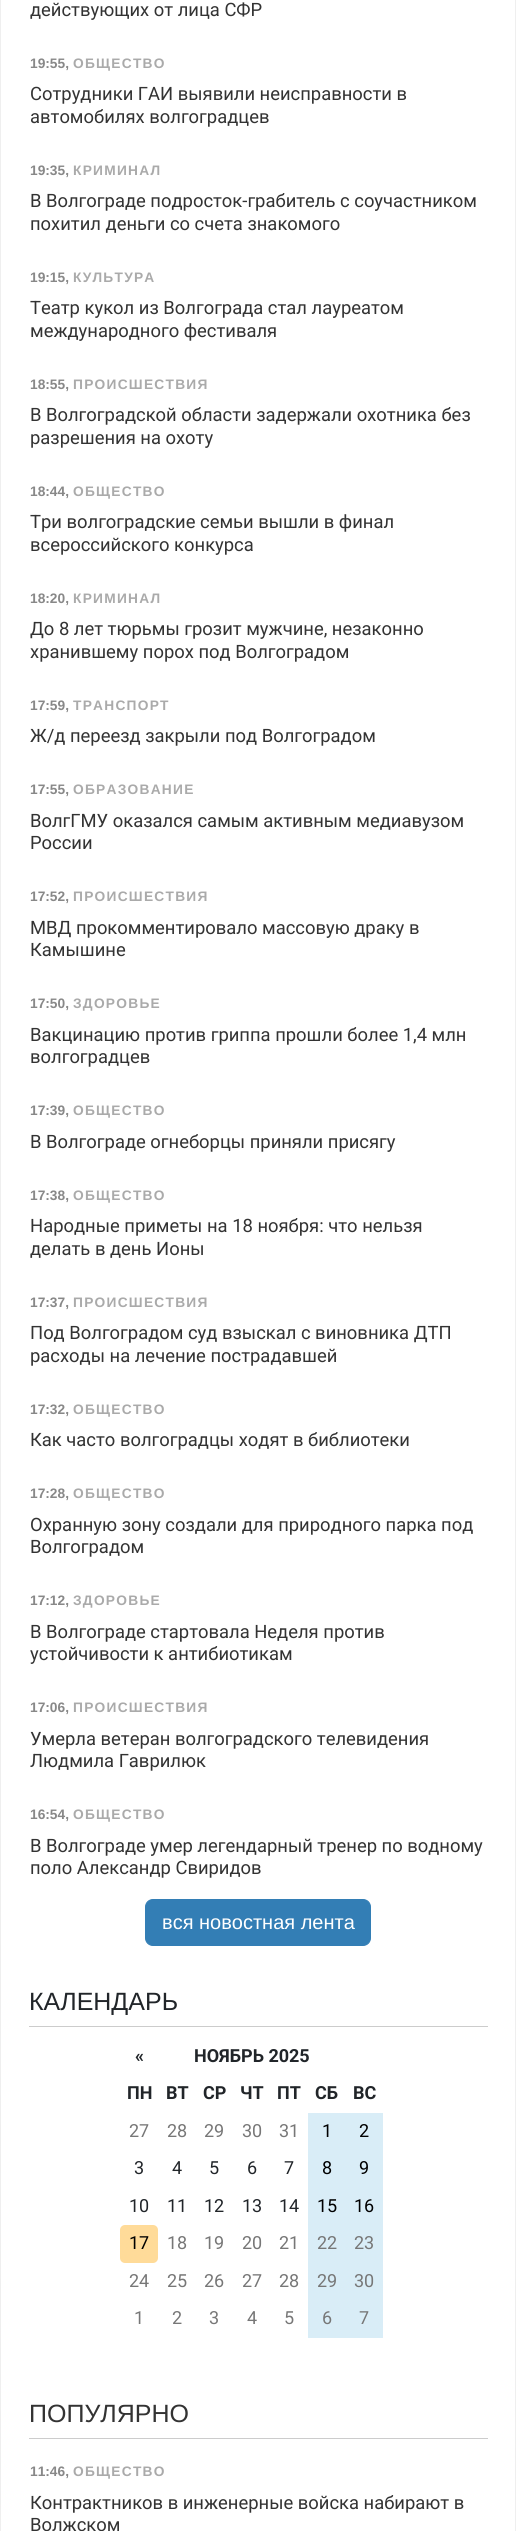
#include <cairo.h>
#include <math.h>
#include <stddef.h>

typedef struct { double x, y; const char *s; } line_t;

static void ink(cairo_t *ctx, unsigned color) {
    cairo_set_source_rgb(ctx, (color >> 16) / 255.0, (color >> 8 & 255) / 255.0, (color & 255) / 255.0);
}

static void write_spaced(cairo_t *ctx, double x, double y, const char *s, double letter, double word) {
    cairo_move_to(ctx, x, y);
    while (*s) {
        char ch[5] = {0};
        int n = 0;
        do ch[n++] = *s++; while ((*s & 0xC0) == 0x80);
        cairo_show_text(ctx, ch);
        cairo_rel_move_to(ctx, letter + word * (*ch == ' '), 0);
    }
}

static void round_path(cairo_t *ctx, double x, double y, double w, double h, double r) {
    cairo_new_sub_path(ctx);
    cairo_arc(ctx, x + w - r, y + h - r, r, 0, M_PI / 2);
    cairo_arc(ctx, x + r, y + h - r, r, M_PI / 2, M_PI);
    cairo_arc(ctx, x + r, y + r, r, M_PI, 1.5 * M_PI);
    cairo_arc(ctx, x + w - r, y + r, r, 1.5 * M_PI, 2 * M_PI);
    cairo_close_path(ctx);
}

int main(void) {
    cairo_surface_t *surface = cairo_image_surface_create(CAIRO_FORMAT_RGB24, 516, 2531);
    cairo_t *ctx = cairo_create(surface);
    cairo_font_options_t *options = cairo_font_options_create();
    cairo_font_options_set_hint_metrics(options, CAIRO_HINT_METRICS_OFF);
    cairo_font_options_set_hint_style(options, CAIRO_HINT_STYLE_NONE);
    cairo_set_font_options(ctx, options);
    cairo_set_miter_limit(ctx, 4);
    ink(ctx, 0xFFFFFF);
    cairo_paint(ctx);
    ink(ctx, 0xEFEFEF);
    cairo_rectangle(ctx, 515, 0, 1, 2531);
    cairo_fill(ctx);
    cairo_rectangle(ctx, 0, 0, 1, 2531);
    cairo_fill(ctx);
    cairo_select_font_face(ctx, "Roboto", CAIRO_FONT_SLANT_NORMAL, CAIRO_FONT_WEIGHT_NORMAL);
    cairo_set_font_size(ctx, 18.4);
    ink(ctx, 0x333333);
    cairo_move_to(ctx, 30, 16);
    cairo_show_text(ctx, "действующих от лица СФР");
    cairo_select_font_face(ctx, "Liberation Sans", CAIRO_FONT_SLANT_NORMAL, CAIRO_FONT_WEIGHT_BOLD);
    cairo_set_font_size(ctx, 13.75);
    ink(ctx, 0x888888);
    cairo_move_to(ctx, 30, 68);
    cairo_show_text(ctx, "19:55,");
    ink(ctx, 0xAAAAAA);
    write_spaced(ctx, 73, 68, "ОБЩЕСТВО", 1.25, 0);
    cairo_select_font_face(ctx, "Roboto", CAIRO_FONT_SLANT_NORMAL, CAIRO_FONT_WEIGHT_NORMAL);
    cairo_set_font_size(ctx, 18.4);
    ink(ctx, 0x333333);
    cairo_move_to(ctx, 30, 100);
    cairo_show_text(ctx, "Сотрудники ГАИ выявили неисправности в");
    cairo_move_to(ctx, 30, 123);
    cairo_show_text(ctx, "автомобилях волгоградцев");
    cairo_select_font_face(ctx, "Liberation Sans", CAIRO_FONT_SLANT_NORMAL, CAIRO_FONT_WEIGHT_BOLD);
    cairo_set_font_size(ctx, 13.75);
    ink(ctx, 0x888888);
    cairo_move_to(ctx, 30, 175);
    cairo_show_text(ctx, "19:35,");
    ink(ctx, 0xAAAAAA);
    write_spaced(ctx, 73, 175, "КРИМИНАЛ", 1.25, 0);
    cairo_select_font_face(ctx, "Roboto", CAIRO_FONT_SLANT_NORMAL, CAIRO_FONT_WEIGHT_NORMAL);
    cairo_set_font_size(ctx, 18.4);
    ink(ctx, 0x333333);
    cairo_move_to(ctx, 30, 207);
    cairo_show_text(ctx, "В Волгограде подросток-грабитель с соучастником");
    cairo_move_to(ctx, 30, 230);
    cairo_show_text(ctx, "похитил деньги со счета знакомого");
    cairo_select_font_face(ctx, "Liberation Sans", CAIRO_FONT_SLANT_NORMAL, CAIRO_FONT_WEIGHT_BOLD);
    cairo_set_font_size(ctx, 13.75);
    ink(ctx, 0x888888);
    cairo_move_to(ctx, 30, 282);
    cairo_show_text(ctx, "19:15,");
    ink(ctx, 0xAAAAAA);
    write_spaced(ctx, 73, 282, "КУЛЬТУРА", 1.25, 0);
    cairo_select_font_face(ctx, "Roboto", CAIRO_FONT_SLANT_NORMAL, CAIRO_FONT_WEIGHT_NORMAL);
    cairo_set_font_size(ctx, 18.4);
    ink(ctx, 0x333333);
    cairo_move_to(ctx, 30, 314);
    cairo_show_text(ctx, "Театр кукол из Волгограда стал лауреатом");
    cairo_move_to(ctx, 30, 337);
    cairo_show_text(ctx, "международного фестиваля");
    cairo_select_font_face(ctx, "Liberation Sans", CAIRO_FONT_SLANT_NORMAL, CAIRO_FONT_WEIGHT_BOLD);
    cairo_set_font_size(ctx, 13.75);
    ink(ctx, 0x888888);
    cairo_move_to(ctx, 30, 389);
    cairo_show_text(ctx, "18:55,");
    ink(ctx, 0xAAAAAA);
    write_spaced(ctx, 73, 389, "ПРОИСШЕСТВИЯ", 1.25, 0);
    cairo_select_font_face(ctx, "Roboto", CAIRO_FONT_SLANT_NORMAL, CAIRO_FONT_WEIGHT_NORMAL);
    cairo_set_font_size(ctx, 18.4);
    ink(ctx, 0x333333);
    cairo_move_to(ctx, 30, 421);
    cairo_show_text(ctx, "В Волгоградской области задержали охотника без");
    cairo_move_to(ctx, 30, 444);
    cairo_show_text(ctx, "разрешения на охоту");
    cairo_select_font_face(ctx, "Liberation Sans", CAIRO_FONT_SLANT_NORMAL, CAIRO_FONT_WEIGHT_BOLD);
    cairo_set_font_size(ctx, 13.75);
    ink(ctx, 0x888888);
    cairo_move_to(ctx, 30, 496);
    cairo_show_text(ctx, "18:44,");
    ink(ctx, 0xAAAAAA);
    write_spaced(ctx, 73, 496, "ОБЩЕСТВО", 1.25, 0);
    cairo_select_font_face(ctx, "Roboto", CAIRO_FONT_SLANT_NORMAL, CAIRO_FONT_WEIGHT_NORMAL);
    cairo_set_font_size(ctx, 18.4);
    ink(ctx, 0x333333);
    cairo_move_to(ctx, 30, 528);
    cairo_show_text(ctx, "Три волгоградские семьи вышли в финал");
    cairo_move_to(ctx, 30, 551);
    cairo_show_text(ctx, "всероссийского конкурса");
    cairo_select_font_face(ctx, "Liberation Sans", CAIRO_FONT_SLANT_NORMAL, CAIRO_FONT_WEIGHT_BOLD);
    cairo_set_font_size(ctx, 13.75);
    ink(ctx, 0x888888);
    cairo_move_to(ctx, 30, 603);
    cairo_show_text(ctx, "18:20,");
    ink(ctx, 0xAAAAAA);
    write_spaced(ctx, 73, 603, "КРИМИНАЛ", 1.25, 0);
    cairo_select_font_face(ctx, "Roboto", CAIRO_FONT_SLANT_NORMAL, CAIRO_FONT_WEIGHT_NORMAL);
    cairo_set_font_size(ctx, 18.4);
    ink(ctx, 0x333333);
    cairo_move_to(ctx, 30, 635);
    cairo_show_text(ctx, "До 8 лет тюрьмы грозит мужчине, незаконно");
    cairo_move_to(ctx, 30, 658);
    cairo_show_text(ctx, "хранившему порох под Волгоградом");
    cairo_select_font_face(ctx, "Liberation Sans", CAIRO_FONT_SLANT_NORMAL, CAIRO_FONT_WEIGHT_BOLD);
    cairo_set_font_size(ctx, 13.75);
    ink(ctx, 0x888888);
    cairo_move_to(ctx, 30, 710);
    cairo_show_text(ctx, "17:59,");
    ink(ctx, 0xAAAAAA);
    write_spaced(ctx, 73, 710, "ТРАНСПОРТ", 1.25, 0);
    cairo_select_font_face(ctx, "Roboto", CAIRO_FONT_SLANT_NORMAL, CAIRO_FONT_WEIGHT_NORMAL);
    cairo_set_font_size(ctx, 18.4);
    ink(ctx, 0x333333);
    cairo_move_to(ctx, 30, 742);
    cairo_show_text(ctx, "Ж/д переезд закрыли под Волгоградом");
    cairo_select_font_face(ctx, "Liberation Sans", CAIRO_FONT_SLANT_NORMAL, CAIRO_FONT_WEIGHT_BOLD);
    cairo_set_font_size(ctx, 13.75);
    ink(ctx, 0x888888);
    cairo_move_to(ctx, 30, 794);
    cairo_show_text(ctx, "17:55,");
    ink(ctx, 0xAAAAAA);
    write_spaced(ctx, 73, 794, "ОБРАЗОВАНИЕ", 1.25, 0);
    cairo_select_font_face(ctx, "Roboto", CAIRO_FONT_SLANT_NORMAL, CAIRO_FONT_WEIGHT_NORMAL);
    cairo_set_font_size(ctx, 18.4);
    ink(ctx, 0x333333);
    cairo_move_to(ctx, 30, 827);
    cairo_show_text(ctx, "ВолгГМУ оказался самым активным медиавузом");
    cairo_move_to(ctx, 30, 849);
    cairo_show_text(ctx, "России");
    cairo_select_font_face(ctx, "Liberation Sans", CAIRO_FONT_SLANT_NORMAL, CAIRO_FONT_WEIGHT_BOLD);
    cairo_set_font_size(ctx, 13.75);
    ink(ctx, 0x888888);
    cairo_move_to(ctx, 30, 901);
    cairo_show_text(ctx, "17:52,");
    ink(ctx, 0xAAAAAA);
    write_spaced(ctx, 73, 901, "ПРОИСШЕСТВИЯ", 1.25, 0);
    cairo_select_font_face(ctx, "Roboto", CAIRO_FONT_SLANT_NORMAL, CAIRO_FONT_WEIGHT_NORMAL);
    cairo_set_font_size(ctx, 18.4);
    ink(ctx, 0x333333);
    cairo_move_to(ctx, 30, 934);
    cairo_show_text(ctx, "МВД прокомментировало массовую драку в");
    cairo_move_to(ctx, 30, 956);
    cairo_show_text(ctx, "Камышине");
    cairo_select_font_face(ctx, "Liberation Sans", CAIRO_FONT_SLANT_NORMAL, CAIRO_FONT_WEIGHT_BOLD);
    cairo_set_font_size(ctx, 13.75);
    ink(ctx, 0x888888);
    cairo_move_to(ctx, 30, 1008);
    cairo_show_text(ctx, "17:50,");
    ink(ctx, 0xAAAAAA);
    write_spaced(ctx, 73, 1008, "ЗДОРОВЬЕ", 1.25, 0);
    cairo_select_font_face(ctx, "Roboto", CAIRO_FONT_SLANT_NORMAL, CAIRO_FONT_WEIGHT_NORMAL);
    cairo_set_font_size(ctx, 18.4);
    ink(ctx, 0x333333);
    cairo_move_to(ctx, 30, 1041);
    cairo_show_text(ctx, "Вакцинацию против гриппа прошли более 1,4 млн");
    cairo_move_to(ctx, 30, 1063);
    cairo_show_text(ctx, "волгоградцев");
    cairo_select_font_face(ctx, "Liberation Sans", CAIRO_FONT_SLANT_NORMAL, CAIRO_FONT_WEIGHT_BOLD);
    cairo_set_font_size(ctx, 13.75);
    ink(ctx, 0x888888);
    cairo_move_to(ctx, 30, 1115);
    cairo_show_text(ctx, "17:39,");
    ink(ctx, 0xAAAAAA);
    write_spaced(ctx, 73, 1115, "ОБЩЕСТВО", 1.25, 0);
    cairo_select_font_face(ctx, "Roboto", CAIRO_FONT_SLANT_NORMAL, CAIRO_FONT_WEIGHT_NORMAL);
    cairo_set_font_size(ctx, 18.4);
    ink(ctx, 0x333333);
    cairo_move_to(ctx, 30, 1148);
    cairo_show_text(ctx, "В Волгограде огнеборцы приняли присягу");
    cairo_select_font_face(ctx, "Liberation Sans", CAIRO_FONT_SLANT_NORMAL, CAIRO_FONT_WEIGHT_BOLD);
    cairo_set_font_size(ctx, 13.75);
    ink(ctx, 0x888888);
    cairo_move_to(ctx, 30, 1200);
    cairo_show_text(ctx, "17:38,");
    ink(ctx, 0xAAAAAA);
    write_spaced(ctx, 73, 1200, "ОБЩЕСТВО", 1.25, 0);
    cairo_select_font_face(ctx, "Roboto", CAIRO_FONT_SLANT_NORMAL, CAIRO_FONT_WEIGHT_NORMAL);
    cairo_set_font_size(ctx, 18.4);
    ink(ctx, 0x333333);
    cairo_move_to(ctx, 30, 1232);
    cairo_show_text(ctx, "Народные приметы на 18 ноября: что нельзя");
    cairo_move_to(ctx, 30, 1255);
    cairo_show_text(ctx, "делать в день Ионы");
    cairo_select_font_face(ctx, "Liberation Sans", CAIRO_FONT_SLANT_NORMAL, CAIRO_FONT_WEIGHT_BOLD);
    cairo_set_font_size(ctx, 13.75);
    ink(ctx, 0x888888);
    cairo_move_to(ctx, 30, 1307);
    cairo_show_text(ctx, "17:37,");
    ink(ctx, 0xAAAAAA);
    write_spaced(ctx, 73, 1307, "ПРОИСШЕСТВИЯ", 1.25, 0);
    cairo_select_font_face(ctx, "Roboto", CAIRO_FONT_SLANT_NORMAL, CAIRO_FONT_WEIGHT_NORMAL);
    cairo_set_font_size(ctx, 18.4);
    ink(ctx, 0x333333);
    cairo_move_to(ctx, 30, 1339);
    cairo_show_text(ctx, "Под Волгоградом суд взыскал с виновника ДТП");
    cairo_move_to(ctx, 30, 1362);
    cairo_show_text(ctx, "расходы на лечение пострадавшей");
    cairo_select_font_face(ctx, "Liberation Sans", CAIRO_FONT_SLANT_NORMAL, CAIRO_FONT_WEIGHT_BOLD);
    cairo_set_font_size(ctx, 13.75);
    ink(ctx, 0x888888);
    cairo_move_to(ctx, 30, 1414);
    cairo_show_text(ctx, "17:32,");
    ink(ctx, 0xAAAAAA);
    write_spaced(ctx, 73, 1414, "ОБЩЕСТВО", 1.25, 0);
    cairo_select_font_face(ctx, "Roboto", CAIRO_FONT_SLANT_NORMAL, CAIRO_FONT_WEIGHT_NORMAL);
    cairo_set_font_size(ctx, 18.4);
    ink(ctx, 0x333333);
    cairo_move_to(ctx, 30, 1446);
    cairo_show_text(ctx, "Как часто волгоградцы ходят в библиотеки");
    cairo_select_font_face(ctx, "Liberation Sans", CAIRO_FONT_SLANT_NORMAL, CAIRO_FONT_WEIGHT_BOLD);
    cairo_set_font_size(ctx, 13.75);
    ink(ctx, 0x888888);
    cairo_move_to(ctx, 30, 1498);
    cairo_show_text(ctx, "17:28,");
    ink(ctx, 0xAAAAAA);
    write_spaced(ctx, 73, 1498, "ОБЩЕСТВО", 1.25, 0);
    cairo_select_font_face(ctx, "Roboto", CAIRO_FONT_SLANT_NORMAL, CAIRO_FONT_WEIGHT_NORMAL);
    cairo_set_font_size(ctx, 18.4);
    ink(ctx, 0x333333);
    cairo_move_to(ctx, 30, 1531);
    cairo_show_text(ctx, "Охранную зону создали для природного парка под");
    cairo_move_to(ctx, 30, 1553);
    cairo_show_text(ctx, "Волгоградом");
    cairo_select_font_face(ctx, "Liberation Sans", CAIRO_FONT_SLANT_NORMAL, CAIRO_FONT_WEIGHT_BOLD);
    cairo_set_font_size(ctx, 13.75);
    ink(ctx, 0x888888);
    cairo_move_to(ctx, 30, 1605);
    cairo_show_text(ctx, "17:12,");
    ink(ctx, 0xAAAAAA);
    write_spaced(ctx, 73, 1605, "ЗДОРОВЬЕ", 1.25, 0);
    cairo_select_font_face(ctx, "Roboto", CAIRO_FONT_SLANT_NORMAL, CAIRO_FONT_WEIGHT_NORMAL);
    cairo_set_font_size(ctx, 18.4);
    ink(ctx, 0x333333);
    cairo_move_to(ctx, 30, 1638);
    cairo_show_text(ctx, "В Волгограде стартовала Неделя против");
    cairo_move_to(ctx, 30, 1660);
    cairo_show_text(ctx, "устойчивости к антибиотикам");
    cairo_select_font_face(ctx, "Liberation Sans", CAIRO_FONT_SLANT_NORMAL, CAIRO_FONT_WEIGHT_BOLD);
    cairo_set_font_size(ctx, 13.75);
    ink(ctx, 0x888888);
    cairo_move_to(ctx, 30, 1712);
    cairo_show_text(ctx, "17:06,");
    ink(ctx, 0xAAAAAA);
    write_spaced(ctx, 73, 1712, "ПРОИСШЕСТВИЯ", 1.25, 0);
    cairo_select_font_face(ctx, "Roboto", CAIRO_FONT_SLANT_NORMAL, CAIRO_FONT_WEIGHT_NORMAL);
    cairo_set_font_size(ctx, 18.4);
    ink(ctx, 0x333333);
    cairo_move_to(ctx, 30, 1745);
    cairo_show_text(ctx, "Умерла ветеран волгоградского телевидения");
    cairo_move_to(ctx, 30, 1767);
    cairo_show_text(ctx, "Людмила Гаврилюк");
    cairo_select_font_face(ctx, "Liberation Sans", CAIRO_FONT_SLANT_NORMAL, CAIRO_FONT_WEIGHT_BOLD);
    cairo_set_font_size(ctx, 13.75);
    ink(ctx, 0x888888);
    cairo_move_to(ctx, 30, 1819);
    cairo_show_text(ctx, "16:54,");
    ink(ctx, 0xAAAAAA);
    write_spaced(ctx, 73, 1819, "ОБЩЕСТВО", 1.25, 0);
    cairo_select_font_face(ctx, "Roboto", CAIRO_FONT_SLANT_NORMAL, CAIRO_FONT_WEIGHT_NORMAL);
    cairo_set_font_size(ctx, 18.4);
    ink(ctx, 0x333333);
    cairo_move_to(ctx, 30, 1852);
    cairo_show_text(ctx, "В Волгограде умер легендарный тренер по водному");
    cairo_move_to(ctx, 30, 1874);
    cairo_show_text(ctx, "поло Александр Свиридов");
    ink(ctx, 0x337EB5);
    round_path(ctx, 145.5, 1899.5, 225, 46, 7.5);
    cairo_fill_preserve(ctx);
    cairo_set_line_width(ctx, 1);
    cairo_stroke(ctx);
    cairo_select_font_face(ctx, "Liberation Sans", CAIRO_FONT_SLANT_NORMAL, CAIRO_FONT_WEIGHT_NORMAL);
    cairo_set_font_size(ctx, 20);
    ink(ctx, 0xFFFFFF);
    cairo_move_to(ctx, 162, 1929);
    cairo_show_text(ctx, "вся новостная лента");
    ink(ctx, 0xCCCCCC);
    cairo_rectangle(ctx, 29, 2026, 459, 1);
    cairo_fill(ctx);
    cairo_set_font_size(ctx, 25);
    ink(ctx, 0x212529);
    cairo_move_to(ctx, 29, 2010);
    cairo_show_text(ctx, "КАЛЕНДАРЬ");
    cairo_select_font_face(ctx, "Roboto", CAIRO_FONT_SLANT_NORMAL, CAIRO_FONT_WEIGHT_BOLD);
    cairo_set_font_size(ctx, 18);
    {
        static const line_t items[] = {
            {135, 2062, "«"},
            {194, 2062, "НОЯБРЬ 2025"},
            {127, 2099, "ПН"},
            {166, 2099, "ВТ"},
            {203, 2099, "СР"},
            {240, 2099, "ЧТ"},
            {277, 2099, "ПТ"},
            {315, 2099, "СБ"},
            {353, 2099, "ВС"},
        };
        for (size_t i = 0; i < sizeof items / sizeof *items; i++) {
            cairo_move_to(ctx, items[i].x, items[i].y);
            cairo_show_text(ctx, items[i].s);
        }
    }
    cairo_select_font_face(ctx, "Roboto", CAIRO_FONT_SLANT_NORMAL, CAIRO_FONT_WEIGHT_NORMAL);
    ink(ctx, 0x777777);
    {
        static const line_t items[] = {
            {129, 2137, "27"},
            {167, 2137, "28"},
            {204, 2137, "29"},
            {242, 2137, "30"},
            {279, 2137, "31"},
        };
        for (size_t i = 0; i < sizeof items / sizeof *items; i++) {
            cairo_move_to(ctx, items[i].x, items[i].y);
            cairo_show_text(ctx, items[i].s);
        }
    }
    ink(ctx, 0xD9EDF7);
    cairo_rectangle(ctx, 308, 2113, 75, 37);
    cairo_fill(ctx);
    ink(ctx, 0x000000);
    cairo_move_to(ctx, 322, 2137);
    cairo_show_text(ctx, "1");
    cairo_move_to(ctx, 359, 2137);
    cairo_show_text(ctx, "2");
    ink(ctx, 0x212529);
    {
        static const line_t items[] = {
            {134, 2174, "3"},
            {172, 2174, "4"},
            {209, 2174, "5"},
            {247, 2174, "6"},
            {284, 2174, "7"},
        };
        for (size_t i = 0; i < sizeof items / sizeof *items; i++) {
            cairo_move_to(ctx, items[i].x, items[i].y);
            cairo_show_text(ctx, items[i].s);
        }
    }
    ink(ctx, 0xD9EDF7);
    cairo_rectangle(ctx, 308, 2150, 75, 38);
    cairo_fill(ctx);
    ink(ctx, 0x000000);
    cairo_move_to(ctx, 322, 2174);
    cairo_show_text(ctx, "8");
    cairo_move_to(ctx, 359, 2174);
    cairo_show_text(ctx, "9");
    ink(ctx, 0x212529);
    {
        static const line_t items[] = {
            {129, 2212, "10"},
            {167, 2212, "11"},
            {204, 2212, "12"},
            {242, 2212, "13"},
            {279, 2212, "14"},
        };
        for (size_t i = 0; i < sizeof items / sizeof *items; i++) {
            cairo_move_to(ctx, items[i].x, items[i].y);
            cairo_show_text(ctx, items[i].s);
        }
    }
    ink(ctx, 0xD9EDF7);
    cairo_rectangle(ctx, 308, 2188, 75, 37);
    cairo_fill(ctx);
    ink(ctx, 0x000000);
    cairo_move_to(ctx, 317, 2212);
    cairo_show_text(ctx, "15");
    cairo_move_to(ctx, 354, 2212);
    cairo_show_text(ctx, "16");
    ink(ctx, 0xFFDB99);
    round_path(ctx, 120, 2225, 38, 38, 5);
    cairo_fill(ctx);
    ink(ctx, 0x000000);
    cairo_move_to(ctx, 129, 2249);
    cairo_show_text(ctx, "17");
    ink(ctx, 0x777777);
    {
        static const line_t items[] = {
            {167, 2249, "18"},
            {204, 2249, "19"},
            {242, 2249, "20"},
            {279, 2249, "21"},
        };
        for (size_t i = 0; i < sizeof items / sizeof *items; i++) {
            cairo_move_to(ctx, items[i].x, items[i].y);
            cairo_show_text(ctx, items[i].s);
        }
    }
    ink(ctx, 0xD9EDF7);
    cairo_rectangle(ctx, 308, 2225, 75, 38);
    cairo_fill(ctx);
    ink(ctx, 0x777777);
    {
        static const line_t items[] = {
            {317, 2249, "22"},
            {354, 2249, "23"},
            {129, 2287, "24"},
            {167, 2287, "25"},
            {204, 2287, "26"},
            {242, 2287, "27"},
            {279, 2287, "28"},
        };
        for (size_t i = 0; i < sizeof items / sizeof *items; i++) {
            cairo_move_to(ctx, items[i].x, items[i].y);
            cairo_show_text(ctx, items[i].s);
        }
    }
    ink(ctx, 0xD9EDF7);
    cairo_rectangle(ctx, 308, 2263, 75, 37);
    cairo_fill(ctx);
    ink(ctx, 0x777777);
    {
        static const line_t items[] = {
            {317, 2287, "29"},
            {354, 2287, "30"},
            {134, 2324, "1"},
            {172, 2324, "2"},
            {209, 2324, "3"},
            {247, 2324, "4"},
            {284, 2324, "5"},
        };
        for (size_t i = 0; i < sizeof items / sizeof *items; i++) {
            cairo_move_to(ctx, items[i].x, items[i].y);
            cairo_show_text(ctx, items[i].s);
        }
    }
    ink(ctx, 0xD9EDF7);
    cairo_rectangle(ctx, 308, 2300, 75, 38);
    cairo_fill(ctx);
    ink(ctx, 0x777777);
    cairo_move_to(ctx, 322, 2324);
    cairo_show_text(ctx, "6");
    cairo_move_to(ctx, 359, 2324);
    cairo_show_text(ctx, "7");
    ink(ctx, 0xCCCCCC);
    cairo_rectangle(ctx, 29, 2438, 459, 1);
    cairo_fill(ctx);
    cairo_select_font_face(ctx, "Liberation Sans", CAIRO_FONT_SLANT_NORMAL, CAIRO_FONT_WEIGHT_NORMAL);
    cairo_set_font_size(ctx, 25);
    ink(ctx, 0x333333);
    cairo_move_to(ctx, 29, 2422);
    cairo_show_text(ctx, "ПОПУЛЯРНО");
    cairo_select_font_face(ctx, "Liberation Sans", CAIRO_FONT_SLANT_NORMAL, CAIRO_FONT_WEIGHT_BOLD);
    cairo_set_font_size(ctx, 13.75);
    ink(ctx, 0x888888);
    cairo_move_to(ctx, 30, 2476);
    cairo_show_text(ctx, "11:46,");
    ink(ctx, 0xAAAAAA);
    write_spaced(ctx, 73, 2476, "ОБЩЕСТВО", 1.25, 0);
    cairo_select_font_face(ctx, "Roboto", CAIRO_FONT_SLANT_NORMAL, CAIRO_FONT_WEIGHT_NORMAL);
    cairo_set_font_size(ctx, 18.4);
    ink(ctx, 0x333333);
    cairo_move_to(ctx, 30, 2509);
    cairo_show_text(ctx, "Контрактников в инженерные войска набирают в");
    cairo_move_to(ctx, 30, 2531);
    cairo_show_text(ctx, "Волжском");
    cairo_surface_write_to_png(surface, "image.png");
    cairo_font_options_destroy(options);
    cairo_destroy(ctx);
    cairo_surface_destroy(surface);
    return 0;
}
